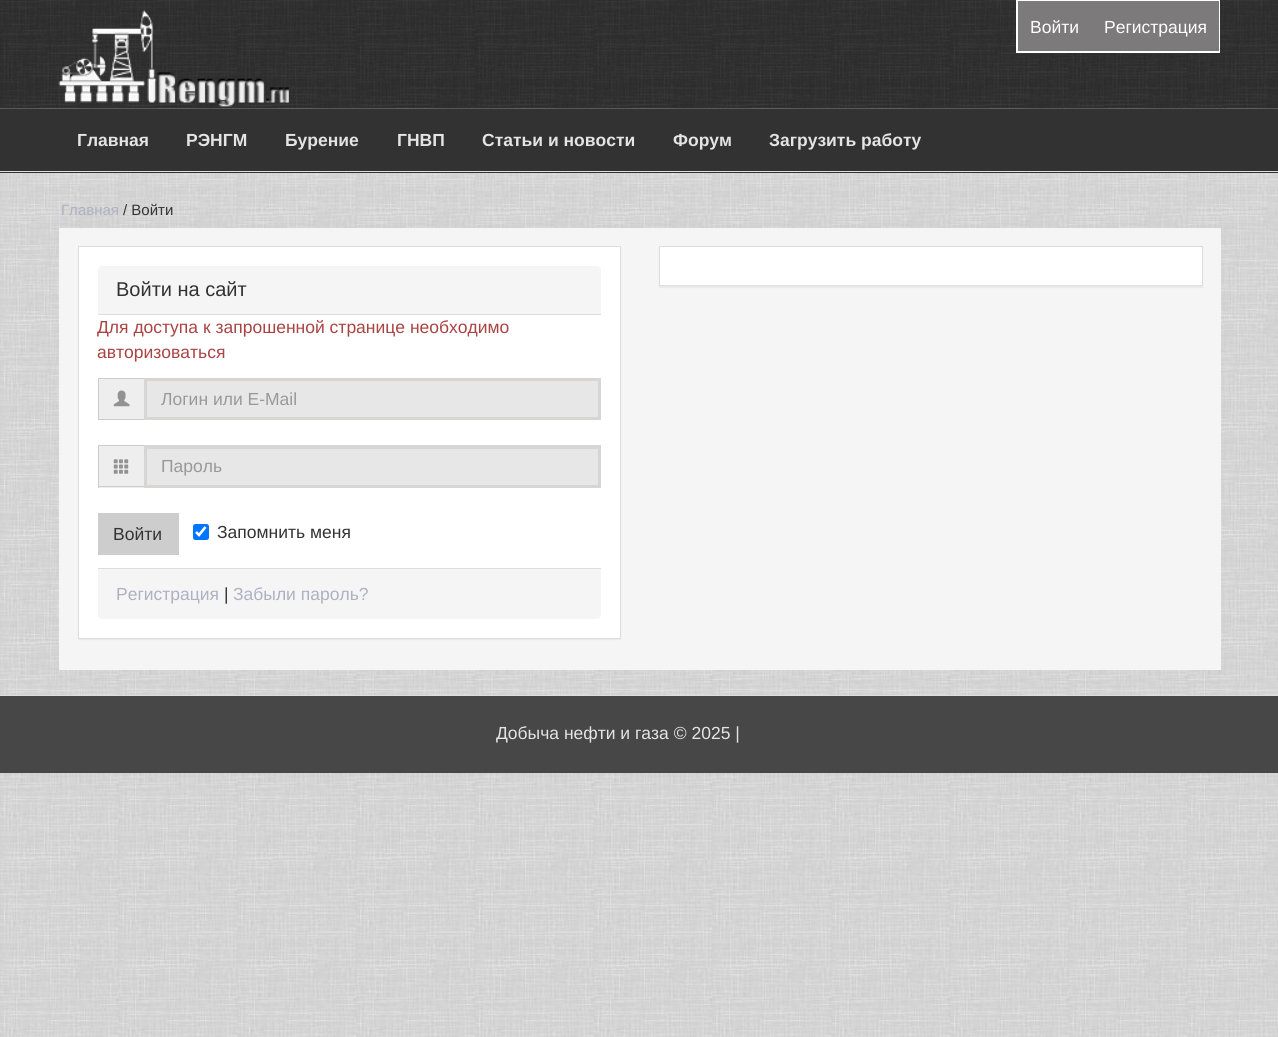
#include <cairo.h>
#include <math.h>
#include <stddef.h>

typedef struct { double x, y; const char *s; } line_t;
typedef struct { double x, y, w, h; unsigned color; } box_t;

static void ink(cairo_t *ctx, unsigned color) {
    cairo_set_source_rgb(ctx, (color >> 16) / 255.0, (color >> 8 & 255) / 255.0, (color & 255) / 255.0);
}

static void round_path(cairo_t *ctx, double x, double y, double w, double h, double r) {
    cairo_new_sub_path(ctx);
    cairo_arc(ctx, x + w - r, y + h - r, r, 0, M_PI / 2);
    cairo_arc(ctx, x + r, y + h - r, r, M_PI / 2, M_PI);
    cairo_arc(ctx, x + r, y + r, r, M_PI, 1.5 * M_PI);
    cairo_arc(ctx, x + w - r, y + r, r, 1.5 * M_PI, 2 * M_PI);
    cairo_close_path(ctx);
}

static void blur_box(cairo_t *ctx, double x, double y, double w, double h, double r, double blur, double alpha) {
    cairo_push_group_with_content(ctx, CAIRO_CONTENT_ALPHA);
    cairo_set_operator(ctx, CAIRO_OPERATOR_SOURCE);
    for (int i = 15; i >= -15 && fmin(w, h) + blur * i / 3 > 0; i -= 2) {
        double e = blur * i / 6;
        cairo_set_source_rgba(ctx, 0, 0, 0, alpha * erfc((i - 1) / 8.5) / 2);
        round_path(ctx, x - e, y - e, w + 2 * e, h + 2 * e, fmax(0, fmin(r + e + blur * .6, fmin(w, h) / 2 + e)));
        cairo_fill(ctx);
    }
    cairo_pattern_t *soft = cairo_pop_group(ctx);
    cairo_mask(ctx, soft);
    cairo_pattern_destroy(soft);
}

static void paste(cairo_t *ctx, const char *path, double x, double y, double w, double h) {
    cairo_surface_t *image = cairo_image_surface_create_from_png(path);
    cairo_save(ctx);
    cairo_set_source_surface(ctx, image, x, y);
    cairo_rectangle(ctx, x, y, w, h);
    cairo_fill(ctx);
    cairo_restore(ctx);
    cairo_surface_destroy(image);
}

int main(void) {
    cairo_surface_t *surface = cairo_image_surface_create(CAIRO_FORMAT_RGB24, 1278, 1037);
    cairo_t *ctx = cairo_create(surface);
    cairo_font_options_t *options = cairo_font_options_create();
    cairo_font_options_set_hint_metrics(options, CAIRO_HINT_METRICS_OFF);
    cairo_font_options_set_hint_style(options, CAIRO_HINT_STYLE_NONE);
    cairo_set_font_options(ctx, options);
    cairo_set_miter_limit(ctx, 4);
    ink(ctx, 0xFFFFFF);
    cairo_paint(ctx);
    paste(ctx, "media/1.png", 0, 108, 1278, 929);
    paste(ctx, "media/2.png", 0, 0, 1278, 109);
    paste(ctx, "media/3.png", 58, 10, 231, 97);
    ink(ctx, 0xFFFFFF);
    cairo_rectangle(ctx, 1016, 0, 204, 53);
    cairo_fill(ctx);
    ink(ctx, 0x7C7A7A);
    cairo_rectangle(ctx, 1018, 1, 201, 50);
    cairo_fill(ctx);
    cairo_select_font_face(ctx, "Liberation Sans", CAIRO_FONT_SLANT_NORMAL, CAIRO_FONT_WEIGHT_NORMAL);
    cairo_set_font_size(ctx, 17.5);
    ink(ctx, 0xFFFFFF);
    cairo_move_to(ctx, 1030, 33);
    cairo_show_text(ctx, "Войти");
    cairo_move_to(ctx, 1104, 33);
    cairo_show_text(ctx, "Регистрация");
    ink(ctx, 0x323232);
    cairo_rectangle(ctx, 0, 109, 1278, 64);
    cairo_fill(ctx);
    ink(ctx, 0xDEDEDE);
    cairo_rectangle(ctx, 0, 171, 1278, 1);
    cairo_fill(ctx);
    cairo_select_font_face(ctx, "Liberation Sans", CAIRO_FONT_SLANT_NORMAL, CAIRO_FONT_WEIGHT_BOLD);
    ink(ctx, 0xE4E4E4);
    {
        static const line_t items[] = {
            {77, 146, "Главная"},
            {186, 146, "РЭНГМ"},
            {285, 146, "Бурение"},
            {397, 146, "ГНВП"},
            {482, 146, "Статьи и новости"},
            {673, 146, "Форум"},
            {769, 146, "Загрузить работу"},
        };
        for (size_t i = 0; i < sizeof items / sizeof *items; i++) {
            cairo_move_to(ctx, items[i].x, items[i].y);
            cairo_show_text(ctx, items[i].s);
        }
    }
    cairo_select_font_face(ctx, "Liberation Sans", CAIRO_FONT_SLANT_NORMAL, CAIRO_FONT_WEIGHT_NORMAL);
    cairo_set_font_size(ctx, 15);
    ink(ctx, 0xAFB0C2);
    cairo_move_to(ctx, 61, 215);
    cairo_show_text(ctx, "Главная");
    ink(ctx, 0x333333);
    cairo_move_to(ctx, 123, 215);
    cairo_show_text(ctx, "/ Войти");
    ink(ctx, 0xF5F5F5);
    cairo_rectangle(ctx, 59, 228, 1162, 442);
    cairo_fill(ctx);
    ink(ctx, 0x000000);
    blur_box(ctx, 659, 248, 544, 40, 0, 0.5, 0.05);
    ink(ctx, 0xFFFFFF);
    cairo_rectangle(ctx, 659.5, 246.5, 543, 39);
    cairo_fill_preserve(ctx);
    ink(ctx, 0xDDDDDD);
    cairo_set_line_width(ctx, 1);
    cairo_stroke(ctx);
    ink(ctx, 0x000000);
    blur_box(ctx, 78, 248, 543, 392, 0, 0.5, 0.05);
    ink(ctx, 0xFFFFFF);
    cairo_rectangle(ctx, 78.5, 246.5, 542, 392);
    cairo_fill_preserve(ctx);
    ink(ctx, 0xDDDDDD);
    cairo_stroke(ctx);
    ink(ctx, 0xF5F5F5);
    cairo_new_path(ctx);
    cairo_move_to(ctx, 102, 266);
    cairo_line_to(ctx, 597, 266);
    cairo_curve_to(ctx, 599, 266, 601, 268, 601, 270);
    cairo_line_to(ctx, 601, 315);
    cairo_line_to(ctx, 98, 315);
    cairo_line_to(ctx, 98, 270);
    cairo_curve_to(ctx, 98, 268, 100, 266, 102, 266);
    cairo_close_path(ctx);
    cairo_fill(ctx);
    ink(ctx, 0xDDDDDD);
    cairo_rectangle(ctx, 98, 314, 503, 1);
    cairo_fill(ctx);
    cairo_set_font_size(ctx, 20);
    ink(ctx, 0x333333);
    cairo_move_to(ctx, 116, 296);
    cairo_show_text(ctx, "Войти на сайт");
    cairo_set_font_size(ctx, 17.5);
    ink(ctx, 0xA94442);
    cairo_move_to(ctx, 97, 333);
    cairo_show_text(ctx, "Для доступа к запрошенной странице необходимо");
    cairo_move_to(ctx, 97, 358);
    cairo_show_text(ctx, "авторизоваться");
    {
        static const box_t items[] = {
            {99, 379, 45, 40, 0xEEEEEE},
            {98, 378, 46, 1, 0xCCCCCC},
            {98, 419, 46, 1, 0xCCCCCC},
            {98, 378, 1, 42, 0xCCCCCC},
        };
        for (size_t i = 0; i < sizeof items / sizeof *items; i++) {
            ink(ctx, items[i].color);
            cairo_rectangle(ctx, items[i].x, items[i].y, items[i].w, items[i].h);
            cairo_fill(ctx);
        }
    }
    paste(ctx, "media/4.png", 113, 390, 17, 17);
    ink(ctx, 0xE7E7E7);
    cairo_rectangle(ctx, 145.5, 379.5, 454, 39);
    cairo_fill_preserve(ctx);
    ink(ctx, 0xD8D5D5);
    cairo_set_line_width(ctx, 3);
    cairo_stroke(ctx);
    ink(ctx, 0x999999);
    cairo_move_to(ctx, 161, 405);
    cairo_show_text(ctx, "Логин или E-Mail");
    {
        static const box_t items[] = {
            {99, 446, 45, 42, 0xEEEEEE},
            {98, 445, 46, 1, 0xCCCCCC},
            {98, 486, 46, 1, 0xCCCCCC},
            {98, 445, 1, 43, 0xCCCCCC},
        };
        for (size_t i = 0; i < sizeof items / sizeof *items; i++) {
            ink(ctx, items[i].color);
            cairo_rectangle(ctx, items[i].x, items[i].y, items[i].w, items[i].h);
            cairo_fill(ctx);
        }
    }
    paste(ctx, "media/5.png", 113, 459, 16, 15);
    ink(ctx, 0xE7E7E7);
    cairo_rectangle(ctx, 147, 449, 451, 36);
    cairo_fill(ctx);
    ink(ctx, 0xD6D6D6);
    cairo_rectangle(ctx, 146, 448, 453, 1);
    cairo_fill(ctx);
    cairo_rectangle(ctx, 145.5, 446.5, 454, 40);
    ink(ctx, 0xD8D5D5);
    cairo_stroke(ctx);
    ink(ctx, 0x999999);
    cairo_move_to(ctx, 161, 472);
    cairo_show_text(ctx, "Пароль");
    ink(ctx, 0xCDCDCD);
    cairo_rectangle(ctx, 98, 513, 81, 42);
    cairo_fill(ctx);
    ink(ctx, 0x333333);
    cairo_move_to(ctx, 113, 540);
    cairo_show_text(ctx, "Войти");
    ink(ctx, 0x0075FF);
    round_path(ctx, 193, 524, 16, 16, 2.5);
    cairo_fill(ctx);
    cairo_new_path(ctx);
    cairo_move_to(ctx, 196, 532);
    cairo_line_to(ctx, 199, 535);
    cairo_line_to(ctx, 205.5, 527);
    ink(ctx, 0xFFFFFF);
    cairo_set_line_width(ctx, 2.6);
    cairo_stroke(ctx);
    ink(ctx, 0x333333);
    cairo_move_to(ctx, 217, 538);
    cairo_show_text(ctx, "Запомнить меня");
    ink(ctx, 0xF5F5F5);
    cairo_new_path(ctx);
    cairo_move_to(ctx, 98, 568);
    cairo_line_to(ctx, 601, 568);
    cairo_line_to(ctx, 601, 615);
    cairo_curve_to(ctx, 601, 617, 599, 619, 597, 619);
    cairo_line_to(ctx, 102, 619);
    cairo_curve_to(ctx, 100, 619, 98, 617, 98, 615);
    cairo_close_path(ctx);
    cairo_fill(ctx);
    ink(ctx, 0xDDDDDD);
    cairo_rectangle(ctx, 98, 568, 503, 1);
    cairo_fill(ctx);
    ink(ctx, 0xAFB0C2);
    cairo_move_to(ctx, 116, 600);
    cairo_show_text(ctx, "Регистрация");
    ink(ctx, 0x333333);
    cairo_move_to(ctx, 224, 600);
    cairo_show_text(ctx, "|");
    ink(ctx, 0xAFB0C2);
    cairo_move_to(ctx, 233, 600);
    cairo_show_text(ctx, "Забыли пароль?");
    ink(ctx, 0x474747);
    cairo_rectangle(ctx, 0, 696, 1278, 77);
    cairo_fill(ctx);
    ink(ctx, 0xDEDEDE);
    cairo_rectangle(ctx, 0, 695, 1278, 1);
    cairo_fill(ctx);
    ink(ctx, 0xE4E4E4);
    cairo_move_to(ctx, 496, 739);
    cairo_show_text(ctx, "Добыча нефти и газа © 2025 |");
    cairo_surface_write_to_png(surface, "image.png");
    cairo_font_options_destroy(options);
    cairo_destroy(ctx);
    cairo_surface_destroy(surface);
    return 0;
}
